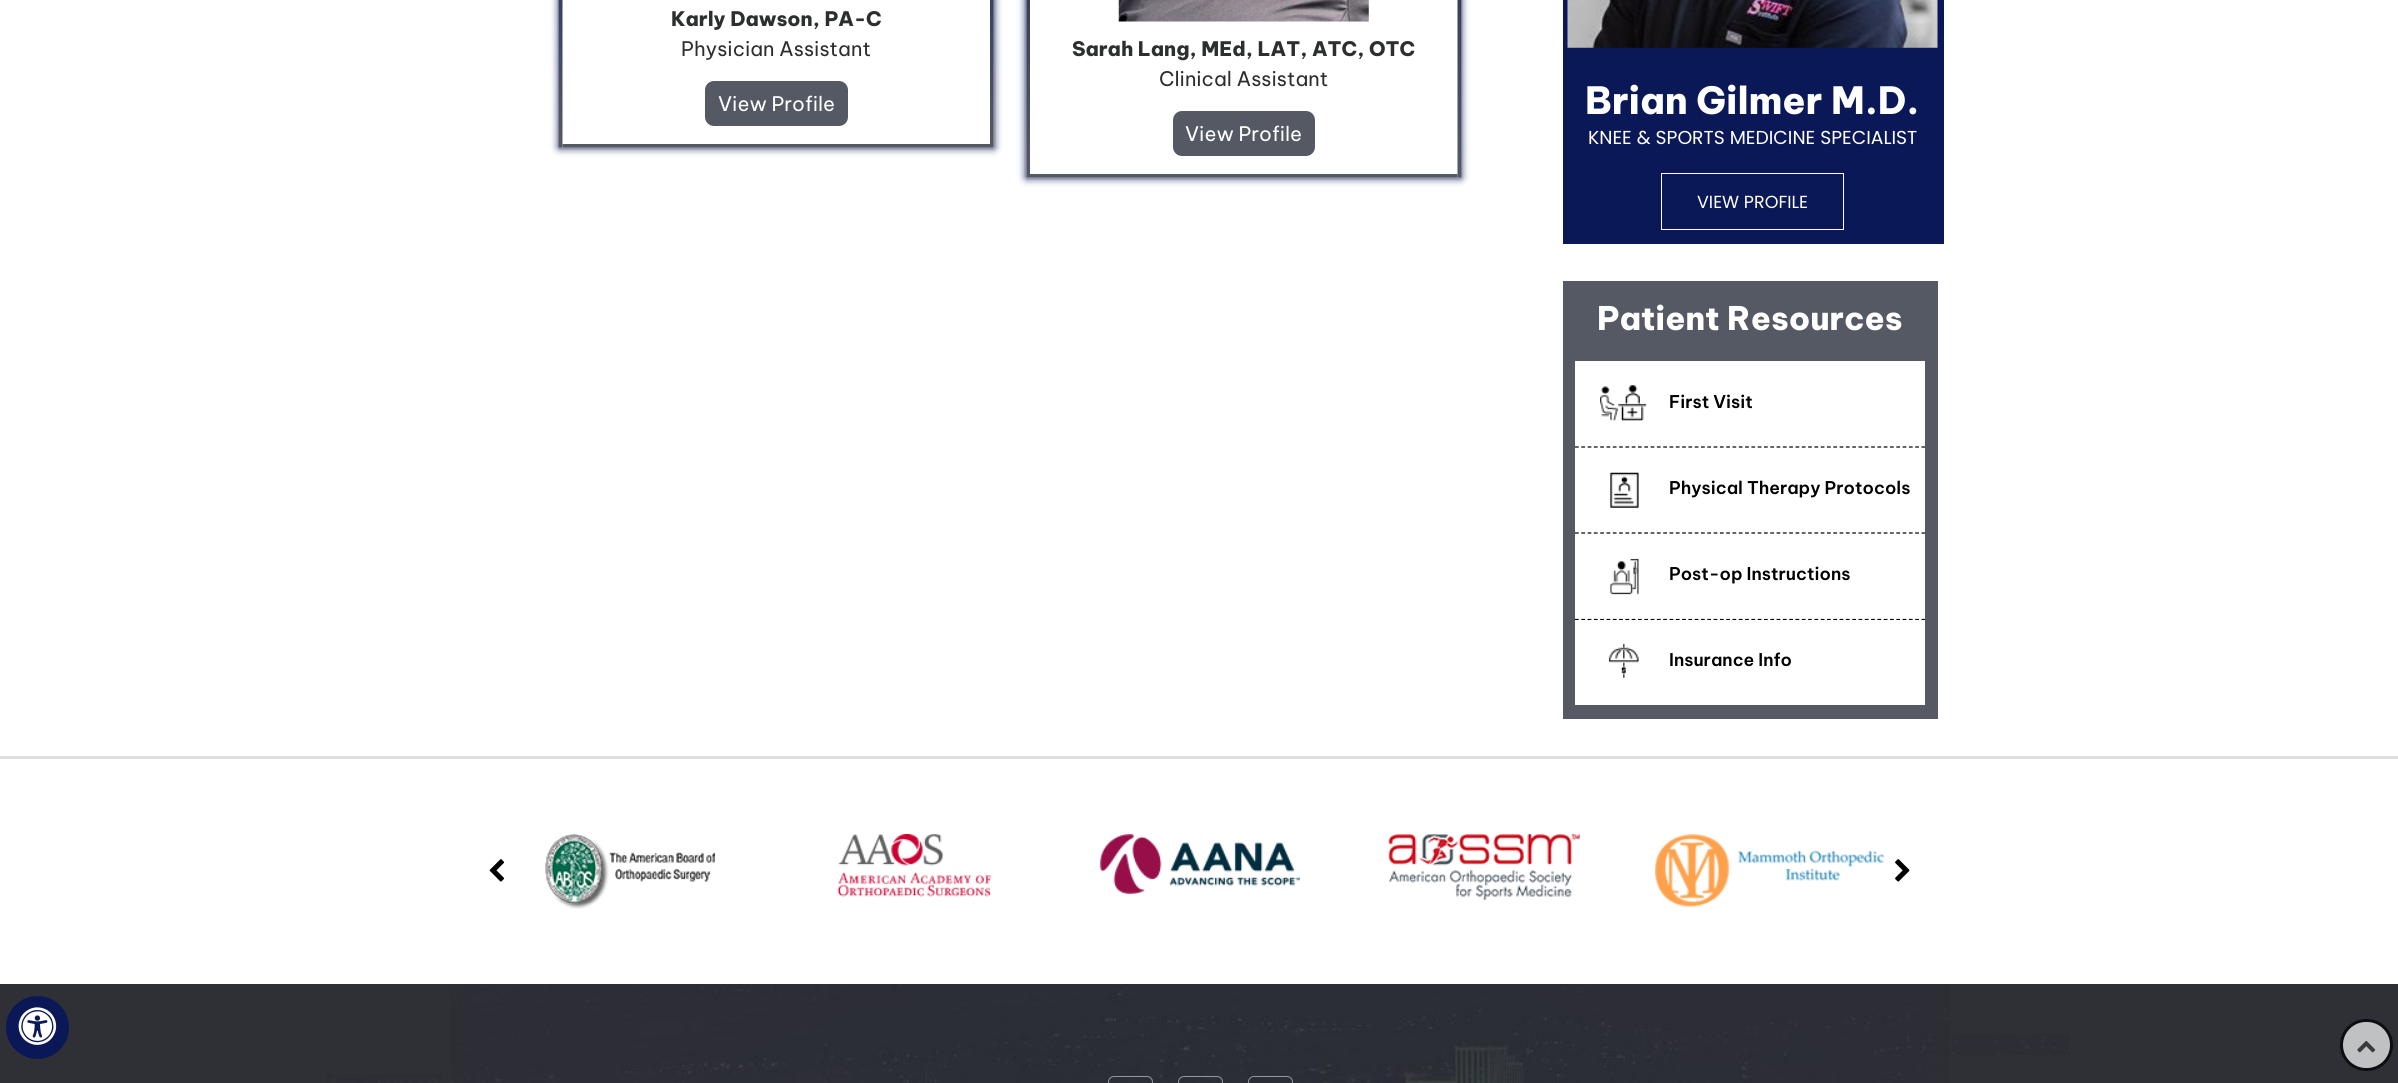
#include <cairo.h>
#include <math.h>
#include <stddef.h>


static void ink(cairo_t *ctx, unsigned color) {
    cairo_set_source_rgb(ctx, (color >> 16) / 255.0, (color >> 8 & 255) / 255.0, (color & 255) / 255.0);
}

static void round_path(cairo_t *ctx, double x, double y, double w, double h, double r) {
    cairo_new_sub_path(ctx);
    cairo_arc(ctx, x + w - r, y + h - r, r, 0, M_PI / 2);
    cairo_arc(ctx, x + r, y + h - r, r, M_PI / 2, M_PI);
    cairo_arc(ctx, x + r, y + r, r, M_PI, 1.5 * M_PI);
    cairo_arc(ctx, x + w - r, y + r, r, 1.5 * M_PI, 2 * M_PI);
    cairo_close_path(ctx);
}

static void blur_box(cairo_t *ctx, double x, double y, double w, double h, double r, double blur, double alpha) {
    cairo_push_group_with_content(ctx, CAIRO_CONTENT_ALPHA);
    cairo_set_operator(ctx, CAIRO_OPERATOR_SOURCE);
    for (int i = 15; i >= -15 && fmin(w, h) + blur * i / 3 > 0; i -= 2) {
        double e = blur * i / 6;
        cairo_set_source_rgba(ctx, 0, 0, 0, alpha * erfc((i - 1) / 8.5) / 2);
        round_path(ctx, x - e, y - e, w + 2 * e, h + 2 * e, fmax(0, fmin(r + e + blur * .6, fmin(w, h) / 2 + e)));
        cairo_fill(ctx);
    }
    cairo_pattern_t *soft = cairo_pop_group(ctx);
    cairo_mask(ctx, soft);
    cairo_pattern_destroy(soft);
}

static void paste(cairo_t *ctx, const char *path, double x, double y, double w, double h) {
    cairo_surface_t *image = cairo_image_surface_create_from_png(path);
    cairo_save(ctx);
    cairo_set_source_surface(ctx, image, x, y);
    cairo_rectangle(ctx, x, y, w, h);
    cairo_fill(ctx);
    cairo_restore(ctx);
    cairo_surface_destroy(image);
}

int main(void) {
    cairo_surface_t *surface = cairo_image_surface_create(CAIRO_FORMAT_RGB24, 2398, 1083);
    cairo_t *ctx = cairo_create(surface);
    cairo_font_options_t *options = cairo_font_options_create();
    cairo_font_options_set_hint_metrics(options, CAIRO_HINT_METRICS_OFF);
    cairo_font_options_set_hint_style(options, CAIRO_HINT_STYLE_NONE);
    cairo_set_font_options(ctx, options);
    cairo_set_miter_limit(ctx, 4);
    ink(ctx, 0xFFFFFF);
    cairo_paint(ctx);
    ink(ctx, 0xDEDEDE);
    cairo_rectangle(ctx, 0, 756, 2398, 3);
    cairo_fill(ctx);
    cairo_save(ctx);
    cairo_set_fill_rule(ctx, CAIRO_FILL_RULE_EVEN_ODD);
    cairo_new_path(ctx);
    cairo_move_to(ctx, 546, 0);
    cairo_line_to(ctx, 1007, 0);
    cairo_line_to(ctx, 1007, 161);
    cairo_line_to(ctx, 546, 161);
    cairo_close_path(ctx);
    cairo_move_to(ctx, 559, -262);
    cairo_line_to(ctx, 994, -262);
    cairo_line_to(ctx, 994, 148);
    cairo_line_to(ctx, 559, 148);
    cairo_close_path(ctx);
    cairo_clip(ctx);
    ink(ctx, 0x0A1857);
    blur_box(ctx, 559, -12, 435, 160, 0, 4, 1);
    cairo_restore(ctx);
    paste(ctx, "media/1.png", 558, 0, 436, 148);
    cairo_select_font_face(ctx, "Be Vietnam Pro ExtraBold", CAIRO_FONT_SLANT_NORMAL, CAIRO_FONT_WEIGHT_NORMAL);
    cairo_set_font_size(ctx, 20);
    ink(ctx, 0x2D2F2F);
    cairo_move_to(ctx, 671, 26);
    cairo_show_text(ctx, "Karly Dawson, PA-C");
    cairo_select_font_face(ctx, "Be Vietnam Pro", CAIRO_FONT_SLANT_NORMAL, CAIRO_FONT_WEIGHT_NORMAL);
    cairo_move_to(ctx, 681, 56);
    cairo_show_text(ctx, "Physician Assistant");
    ink(ctx, 0x555963);
    round_path(ctx, 705, 81, 143, 45, 9);
    cairo_fill(ctx);
    ink(ctx, 0xFFFFFF);
    cairo_move_to(ctx, 718, 111);
    cairo_show_text(ctx, "View Profile");
    cairo_save(ctx);
    cairo_set_fill_rule(ctx, CAIRO_FILL_RULE_EVEN_ODD);
    cairo_new_path(ctx);
    cairo_move_to(ctx, 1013, 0);
    cairo_line_to(ctx, 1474, 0);
    cairo_line_to(ctx, 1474, 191);
    cairo_line_to(ctx, 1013, 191);
    cairo_close_path(ctx);
    cairo_move_to(ctx, 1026, -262);
    cairo_line_to(ctx, 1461, -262);
    cairo_line_to(ctx, 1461, 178);
    cairo_line_to(ctx, 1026, 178);
    cairo_close_path(ctx);
    cairo_clip(ctx);
    ink(ctx, 0x0A1857);
    blur_box(ctx, 1026, -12, 435, 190, 0, 4, 1);
    cairo_restore(ctx);
    paste(ctx, "media/2.png", 1026, 0, 436, 178);
    paste(ctx, "media/3.png", 1118, 0, 251, 22);
    cairo_select_font_face(ctx, "Be Vietnam Pro ExtraBold", CAIRO_FONT_SLANT_NORMAL, CAIRO_FONT_WEIGHT_NORMAL);
    ink(ctx, 0x2D2F2F);
    cairo_move_to(ctx, 1072, 56);
    cairo_show_text(ctx, "Sarah Lang, MEd, LAT, ATC, OTC");
    cairo_select_font_face(ctx, "Be Vietnam Pro", CAIRO_FONT_SLANT_NORMAL, CAIRO_FONT_WEIGHT_NORMAL);
    cairo_move_to(ctx, 1159, 86);
    cairo_show_text(ctx, "Clinical Assistant");
    ink(ctx, 0x555963);
    round_path(ctx, 1173, 111, 142, 45, 9);
    cairo_fill(ctx);
    ink(ctx, 0xFFFFFF);
    cairo_move_to(ctx, 1185, 141);
    cairo_show_text(ctx, "View Profile");
    ink(ctx, 0x0A1857);
    cairo_rectangle(ctx, 1563, 0, 381, 244);
    cairo_fill(ctx);
    paste(ctx, "media/4.png", 1567, 0, 371, 48);
    cairo_select_font_face(ctx, "Be Vietnam Pro ExtraBold", CAIRO_FONT_SLANT_NORMAL, CAIRO_FONT_WEIGHT_NORMAL);
    cairo_set_font_size(ctx, 37.5);
    ink(ctx, 0xFFFFFF);
    cairo_move_to(ctx, 1585, 114);
    cairo_show_text(ctx, "Brian Gilmer M.D.");
    cairo_select_font_face(ctx, "Poppins", CAIRO_FONT_SLANT_NORMAL, CAIRO_FONT_WEIGHT_NORMAL);
    cairo_set_font_size(ctx, 18.75);
    cairo_move_to(ctx, 1588, 144);
    cairo_show_text(ctx, "KNEE & SPORTS MEDICINE SPECIALIST");
    cairo_rectangle(ctx, 1661.5, 173.5, 182, 56);
    cairo_set_line_width(ctx, 1);
    cairo_stroke(ctx);
    cairo_set_font_size(ctx, 17.5);
    cairo_move_to(ctx, 1697, 208);
    cairo_show_text(ctx, "VIEW PROFILE");
    ink(ctx, 0x555963);
    cairo_rectangle(ctx, 1563, 281, 375, 438);
    cairo_fill(ctx);
    cairo_select_font_face(ctx, "Be Vietnam Pro ExtraBold", CAIRO_FONT_SLANT_NORMAL, CAIRO_FONT_WEIGHT_NORMAL);
    cairo_set_font_size(ctx, 32.5);
    ink(ctx, 0xFFFFFF);
    cairo_move_to(ctx, 1597, 330);
    cairo_show_text(ctx, "Patient Resources");
    cairo_rectangle(ctx, 1575, 361, 350, 259);
    cairo_fill(ctx);
    cairo_new_path(ctx);
    cairo_move_to(ctx, 1575, 447);
    cairo_line_to(ctx, 1925, 447);
    ink(ctx, 0x000000);
    cairo_set_line_width(ctx, 1.2);
    cairo_set_dash(ctx, (double[]){3.75, 2.55}, 2, 0);
    cairo_stroke(ctx);
    paste(ctx, "media/5.png", 1600, 385, 47, 36);
    cairo_select_font_face(ctx, "Be Vietnam Pro SemiBold", CAIRO_FONT_SLANT_NORMAL, CAIRO_FONT_WEIGHT_NORMAL);
    cairo_set_font_size(ctx, 17.5);
    cairo_move_to(ctx, 1669, 408);
    cairo_show_text(ctx, "First Visit");
    cairo_new_path(ctx);
    cairo_move_to(ctx, 1575, 533);
    cairo_line_to(ctx, 1925, 533);
    cairo_stroke(ctx);
    paste(ctx, "media/6.png", 1610, 472, 29, 36);
    cairo_move_to(ctx, 1669, 494);
    cairo_show_text(ctx, "Physical Therapy Protocols");
    cairo_new_path(ctx);
    cairo_move_to(ctx, 1575, 619.5);
    cairo_line_to(ctx, 1925, 619.5);
    cairo_stroke(ctx);
    paste(ctx, "media/7.png", 1610, 558, 29, 37);
    cairo_move_to(ctx, 1669, 580);
    cairo_show_text(ctx, "Post-op Instructions");
    ink(ctx, 0xFFFFFF);
    cairo_rectangle(ctx, 1575, 620, 350, 85);
    cairo_fill(ctx);
    paste(ctx, "media/8.png", 1608, 643, 31, 35);
    ink(ctx, 0x000000);
    cairo_move_to(ctx, 1669, 666);
    cairo_show_text(ctx, "Insurance Info");
    paste(ctx, "media/9.png", 489, 859, 16, 23);
    paste(ctx, "media/10.png", 545, 834, 170, 75);
    paste(ctx, "media/11.png", 837, 834, 155, 63);
    paste(ctx, "media/12.png", 1100, 834, 200, 60);
    paste(ctx, "media/13.png", 1388, 834, 192, 67);
    paste(ctx, "media/14.png", 1655, 834, 229, 73);
    paste(ctx, "media/15.png", 1895, 859, 15, 23);
    ink(ctx, 0x2E3036);
    cairo_rectangle(ctx, 0, 984, 2398, 99);
    cairo_fill(ctx);
    paste(ctx, "media/16.png", 450, 984, 1500, 99);
    paste(ctx, "media/17.png", 1952, 1034, 118, 21);
    paste(ctx, "media/18.png", 326, 1074, 117, 9);
    round_path(ctx, 1108.5, 1076.5, 44, 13, 5.5);
    ink(ctx, 0x95979A);
    cairo_set_line_width(ctx, 1);
    cairo_set_dash(ctx, NULL, 0, 0);
    cairo_stroke(ctx);
    round_path(ctx, 1178.5, 1076.5, 44, 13, 5.5);
    cairo_stroke(ctx);
    round_path(ctx, 1248.5, 1076.5, 44, 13, 5.5);
    cairo_stroke(ctx);
    ink(ctx, 0x0A1857);
    cairo_arc(ctx, 37.5, 1027.5, 31.5, 0, 2 * M_PI);
    cairo_fill(ctx);
    paste(ctx, "media/19.png", 18, 1007, 39, 38);
    ink(ctx, 0xC0C1C3);
    round_path(ctx, 2341.5, 1020.5, 50, 49, 24.5);
    cairo_fill_preserve(ctx);
    ink(ctx, 0x0E0E10);
    cairo_set_line_width(ctx, 3);
    cairo_stroke(ctx);
    paste(ctx, "media/20.png", 2357, 1040, 19, 13);
    cairo_surface_write_to_png(surface, "image.png");
    cairo_font_options_destroy(options);
    cairo_destroy(ctx);
    cairo_surface_destroy(surface);
    return 0;
}
